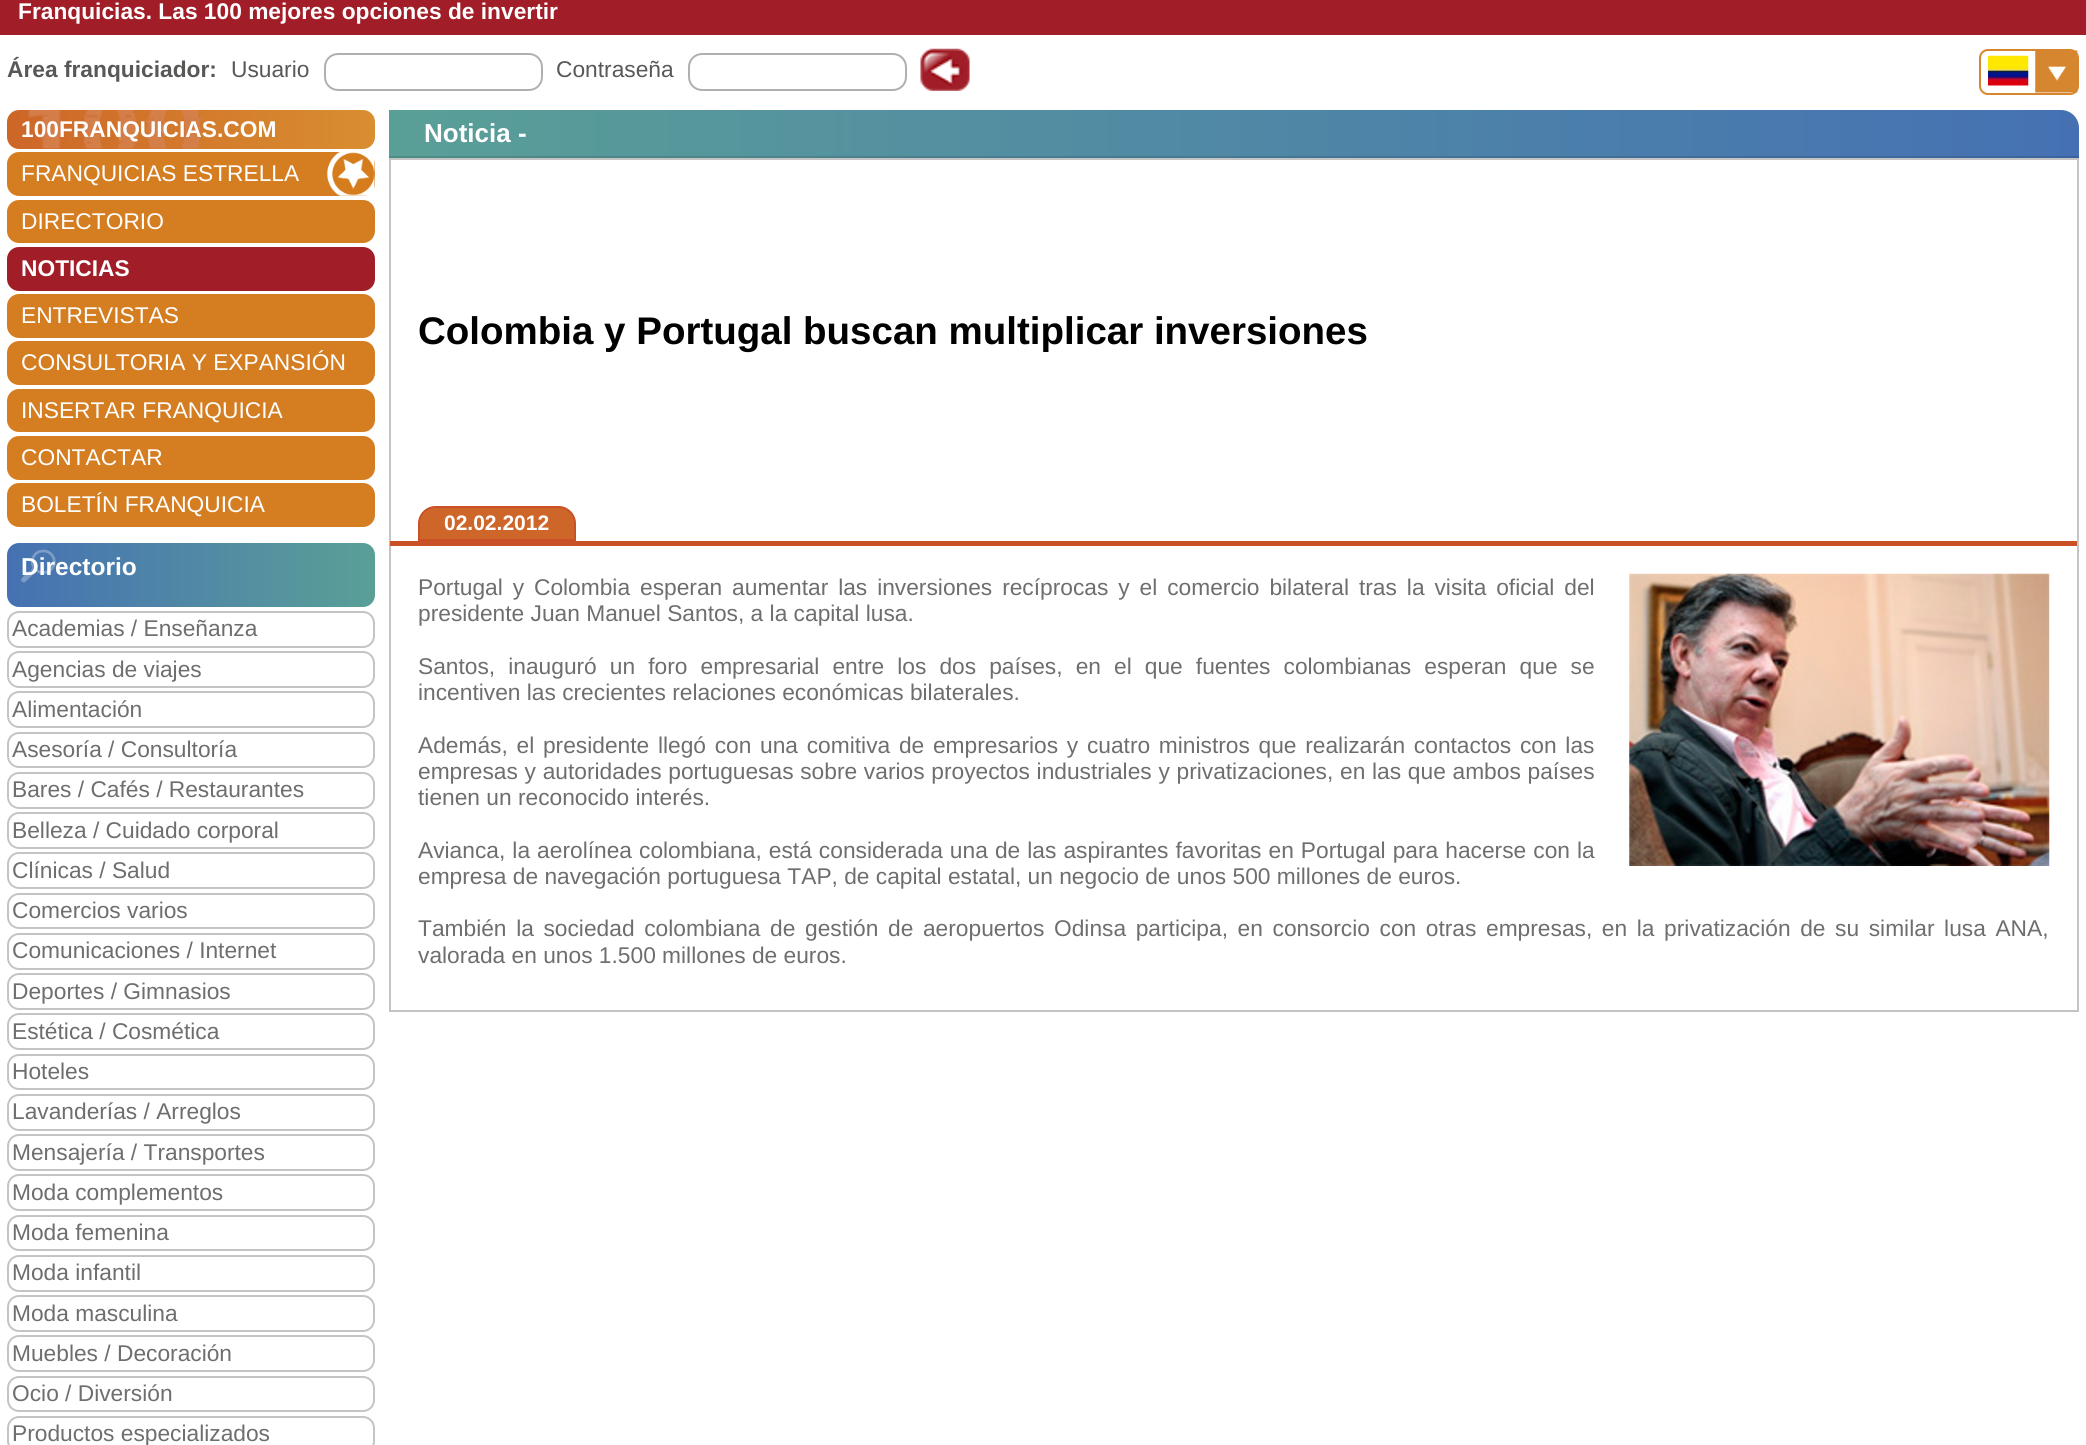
#include <cairo.h>
#include <math.h>
#include <stddef.h>


static void ink(cairo_t *ctx, unsigned color) {
    cairo_set_source_rgb(ctx, (color >> 16) / 255.0, (color >> 8 & 255) / 255.0, (color & 255) / 255.0);
}

static void write_spaced(cairo_t *ctx, double x, double y, const char *s, double letter, double word) {
    cairo_move_to(ctx, x, y);
    while (*s) {
        char ch[5] = {0};
        int n = 0;
        do ch[n++] = *s++; while ((*s & 0xC0) == 0x80);
        cairo_show_text(ctx, ch);
        cairo_rel_move_to(ctx, letter + word * (*ch == ' '), 0);
    }
}

static void round_path(cairo_t *ctx, double x, double y, double w, double h, double r) {
    cairo_new_sub_path(ctx);
    cairo_arc(ctx, x + w - r, y + h - r, r, 0, M_PI / 2);
    cairo_arc(ctx, x + r, y + h - r, r, M_PI / 2, M_PI);
    cairo_arc(ctx, x + r, y + r, r, M_PI, 1.5 * M_PI);
    cairo_arc(ctx, x + w - r, y + r, r, 1.5 * M_PI, 2 * M_PI);
    cairo_close_path(ctx);
}

static void paste(cairo_t *ctx, const char *path, double x, double y, double w, double h) {
    cairo_surface_t *image = cairo_image_surface_create_from_png(path);
    cairo_save(ctx);
    cairo_set_source_surface(ctx, image, x, y);
    cairo_rectangle(ctx, x, y, w, h);
    cairo_fill(ctx);
    cairo_restore(ctx);
    cairo_surface_destroy(image);
}

int main(void) {
    cairo_surface_t *surface = cairo_image_surface_create(CAIRO_FORMAT_RGB24, 2086, 1445);
    cairo_t *ctx = cairo_create(surface);
    cairo_font_options_t *options = cairo_font_options_create();
    cairo_font_options_set_hint_metrics(options, CAIRO_HINT_METRICS_OFF);
    cairo_font_options_set_hint_style(options, CAIRO_HINT_STYLE_NONE);
    cairo_set_font_options(ctx, options);
    cairo_set_miter_limit(ctx, 4);
    cairo_pattern_t *gradient;
    ink(ctx, 0xFFFFFF);
    cairo_paint(ctx);
    ink(ctx, 0xA11E28);
    cairo_rectangle(ctx, 0, 0, 2086, 35);
    cairo_fill(ctx);
    cairo_select_font_face(ctx, "Liberation Sans", CAIRO_FONT_SLANT_NORMAL, CAIRO_FONT_WEIGHT_BOLD);
    cairo_set_font_size(ctx, 22.75);
    ink(ctx, 0xFFFFFF);
    cairo_move_to(ctx, 18, 19);
    cairo_show_text(ctx, "Franquicias. Las 100 mejores opciones de invertir");
    round_path(ctx, 1980, 50, 98, 44, 8);
    ink(ctx, 0xD6862E);
    cairo_stroke(ctx);
    paste(ctx, "media/1.png", 1988, 55, 41, 31);
    paste(ctx, "media/2.png", 2035, 50, 43, 43);
    ink(ctx, 0x585857);
    cairo_move_to(ctx, 7, 77);
    cairo_show_text(ctx, "Área franquiciador:");
    cairo_select_font_face(ctx, "Liberation Sans", CAIRO_FONT_SLANT_NORMAL, CAIRO_FONT_WEIGHT_NORMAL);
    cairo_move_to(ctx, 231, 77);
    cairo_show_text(ctx, "Usuario");
    round_path(ctx, 325, 54, 217, 36, 13);
    ink(ctx, 0xB0B0AF);
    cairo_stroke(ctx);
    ink(ctx, 0x585857);
    cairo_move_to(ctx, 556, 77);
    cairo_show_text(ctx, "Contraseña");
    round_path(ctx, 689, 54, 217, 36, 13);
    ink(ctx, 0xB0B0AF);
    cairo_stroke(ctx);
    paste(ctx, "media/3.png", 920, 48, 50, 43);
    gradient = cairo_pattern_create_linear(7, 130, 375, 130);
    cairo_pattern_add_color_stop_rgba(gradient, 0, 0.804, 0.4, 0.157, 1);
    cairo_pattern_add_color_stop_rgba(gradient, 1, 0.851, 0.557, 0.188, 1);
    cairo_set_source(ctx, gradient);
    cairo_pattern_destroy(gradient);
    round_path(ctx, 7, 110, 368, 39, 12);
    cairo_fill(ctx);
    paste(ctx, "media/4.png", 28, 110, 175, 39);
    cairo_select_font_face(ctx, "Liberation Sans", CAIRO_FONT_SLANT_NORMAL, CAIRO_FONT_WEIGHT_BOLD);
    ink(ctx, 0xFFFFFF);
    cairo_move_to(ctx, 21, 137);
    cairo_show_text(ctx, "100FRANQUICIAS.COM");
    ink(ctx, 0xD57D21);
    round_path(ctx, 7, 152, 368, 44, 12);
    cairo_fill(ctx);
    paste(ctx, "media/5.png", 327, 152, 48, 44);
    cairo_select_font_face(ctx, "Liberation Sans", CAIRO_FONT_SLANT_NORMAL, CAIRO_FONT_WEIGHT_NORMAL);
    ink(ctx, 0xFFFFFF);
    cairo_move_to(ctx, 21, 181);
    cairo_show_text(ctx, "FRANQUICIAS ESTRELLA");
    ink(ctx, 0xD57D21);
    round_path(ctx, 7, 200, 368, 43, 12);
    cairo_fill(ctx);
    ink(ctx, 0xFFFFFF);
    cairo_move_to(ctx, 21, 229);
    cairo_show_text(ctx, "DIRECTORIO");
    ink(ctx, 0xA11E28);
    round_path(ctx, 7, 247, 368, 44, 12);
    cairo_fill(ctx);
    cairo_select_font_face(ctx, "Liberation Sans", CAIRO_FONT_SLANT_NORMAL, CAIRO_FONT_WEIGHT_BOLD);
    ink(ctx, 0xFFFFFF);
    cairo_move_to(ctx, 21, 276);
    cairo_show_text(ctx, "NOTICIAS");
    ink(ctx, 0xD57D21);
    round_path(ctx, 7, 294, 368, 44, 12);
    cairo_fill(ctx);
    cairo_select_font_face(ctx, "Liberation Sans", CAIRO_FONT_SLANT_NORMAL, CAIRO_FONT_WEIGHT_NORMAL);
    ink(ctx, 0xFFFFFF);
    cairo_move_to(ctx, 21, 323);
    cairo_show_text(ctx, "ENTREVISTAS");
    ink(ctx, 0xD57D21);
    round_path(ctx, 7, 341, 368, 44, 12);
    cairo_fill(ctx);
    ink(ctx, 0xFFFFFF);
    cairo_move_to(ctx, 21, 370);
    cairo_show_text(ctx, "CONSULTORIA Y EXPANSIÓN");
    ink(ctx, 0xD57D21);
    round_path(ctx, 7, 389, 368, 43, 12);
    cairo_fill(ctx);
    ink(ctx, 0xFFFFFF);
    cairo_move_to(ctx, 21, 418);
    cairo_show_text(ctx, "INSERTAR FRANQUICIA");
    ink(ctx, 0xD57D21);
    round_path(ctx, 7, 436, 368, 44, 12);
    cairo_fill(ctx);
    ink(ctx, 0xFFFFFF);
    cairo_move_to(ctx, 21, 465);
    cairo_show_text(ctx, "CONTACTAR");
    ink(ctx, 0xD57D21);
    round_path(ctx, 7, 483, 368, 44, 12);
    cairo_fill(ctx);
    ink(ctx, 0xFFFFFF);
    cairo_move_to(ctx, 21, 512);
    cairo_show_text(ctx, "BOLETÍN FRANQUICIA");
    gradient = cairo_pattern_create_linear(7, 575, 375, 575);
    cairo_pattern_add_color_stop_rgba(gradient, 0, 0.271, 0.443, 0.702, 1);
    cairo_pattern_add_color_stop_rgba(gradient, 1, 0.353, 0.624, 0.592, 1);
    cairo_set_source(ctx, gradient);
    cairo_pattern_destroy(gradient);
    round_path(ctx, 7, 543, 368, 64, 12);
    cairo_fill(ctx);
    paste(ctx, "media/6.png", 21, 549, 35, 34);
    cairo_select_font_face(ctx, "Liberation Sans", CAIRO_FONT_SLANT_NORMAL, CAIRO_FONT_WEIGHT_BOLD);
    cairo_set_font_size(ctx, 24.5);
    ink(ctx, 0xFFFFFF);
    cairo_move_to(ctx, 21, 575);
    cairo_show_text(ctx, "Directorio");
    round_path(ctx, 8, 612, 366, 35, 11);
    ink(ctx, 0xC4C4C4);
    cairo_stroke(ctx);
    cairo_select_font_face(ctx, "Liberation Sans", CAIRO_FONT_SLANT_NORMAL, CAIRO_FONT_WEIGHT_NORMAL);
    cairo_set_font_size(ctx, 22.75);
    ink(ctx, 0x6F6E6E);
    cairo_move_to(ctx, 12, 636);
    cairo_show_text(ctx, "Academias / Enseñanza");
    round_path(ctx, 8, 652, 366, 35, 11);
    ink(ctx, 0xC4C4C4);
    cairo_stroke(ctx);
    ink(ctx, 0x6F6E6E);
    cairo_move_to(ctx, 12, 677);
    cairo_show_text(ctx, "Agencias de viajes");
    round_path(ctx, 8, 692, 366, 35, 11);
    ink(ctx, 0xC4C4C4);
    cairo_stroke(ctx);
    ink(ctx, 0x6F6E6E);
    cairo_move_to(ctx, 12, 717);
    cairo_show_text(ctx, "Alimentación");
    round_path(ctx, 8, 733, 366, 34, 11);
    ink(ctx, 0xC4C4C4);
    cairo_stroke(ctx);
    ink(ctx, 0x6F6E6E);
    cairo_move_to(ctx, 12, 757);
    cairo_show_text(ctx, "Asesoría / Consultoría");
    round_path(ctx, 8, 773, 366, 35, 11);
    ink(ctx, 0xC4C4C4);
    cairo_stroke(ctx);
    ink(ctx, 0x6F6E6E);
    cairo_move_to(ctx, 12, 797);
    cairo_show_text(ctx, "Bares / Cafés / Restaurantes");
    round_path(ctx, 8, 813, 366, 35, 11);
    ink(ctx, 0xC4C4C4);
    cairo_stroke(ctx);
    ink(ctx, 0x6F6E6E);
    cairo_move_to(ctx, 12, 838);
    cairo_show_text(ctx, "Belleza / Cuidado corporal");
    round_path(ctx, 8, 853, 366, 35, 11);
    ink(ctx, 0xC4C4C4);
    cairo_stroke(ctx);
    ink(ctx, 0x6F6E6E);
    cairo_move_to(ctx, 12, 878);
    cairo_show_text(ctx, "Clínicas / Salud");
    round_path(ctx, 8, 894, 366, 34, 11);
    ink(ctx, 0xC4C4C4);
    cairo_stroke(ctx);
    ink(ctx, 0x6F6E6E);
    cairo_move_to(ctx, 12, 918);
    cairo_show_text(ctx, "Comercios varios");
    round_path(ctx, 8, 934, 366, 35, 11);
    ink(ctx, 0xC4C4C4);
    cairo_stroke(ctx);
    ink(ctx, 0x6F6E6E);
    cairo_move_to(ctx, 12, 958);
    cairo_show_text(ctx, "Comunicaciones / Internet");
    round_path(ctx, 8, 974, 366, 35, 11);
    ink(ctx, 0xC4C4C4);
    cairo_stroke(ctx);
    ink(ctx, 0x6F6E6E);
    cairo_move_to(ctx, 12, 999);
    cairo_show_text(ctx, "Deportes / Gimnasios");
    round_path(ctx, 8, 1014, 366, 35, 11);
    ink(ctx, 0xC4C4C4);
    cairo_stroke(ctx);
    ink(ctx, 0x6F6E6E);
    cairo_move_to(ctx, 12, 1039);
    cairo_show_text(ctx, "Estética / Cosmética");
    round_path(ctx, 8, 1055, 366, 34, 11);
    ink(ctx, 0xC4C4C4);
    cairo_stroke(ctx);
    ink(ctx, 0x6F6E6E);
    cairo_move_to(ctx, 12, 1079);
    cairo_show_text(ctx, "Hoteles");
    round_path(ctx, 8, 1095, 366, 35, 11);
    ink(ctx, 0xC4C4C4);
    cairo_stroke(ctx);
    ink(ctx, 0x6F6E6E);
    cairo_move_to(ctx, 12, 1119);
    cairo_show_text(ctx, "Lavanderías / Arreglos");
    round_path(ctx, 8, 1135, 366, 35, 11);
    ink(ctx, 0xC4C4C4);
    cairo_stroke(ctx);
    ink(ctx, 0x6F6E6E);
    cairo_move_to(ctx, 12, 1160);
    cairo_show_text(ctx, "Mensajería / Transportes");
    round_path(ctx, 8, 1175, 366, 35, 11);
    ink(ctx, 0xC4C4C4);
    cairo_stroke(ctx);
    ink(ctx, 0x6F6E6E);
    cairo_move_to(ctx, 12, 1200);
    cairo_show_text(ctx, "Moda complementos");
    round_path(ctx, 8, 1216, 366, 34, 11);
    ink(ctx, 0xC4C4C4);
    cairo_stroke(ctx);
    ink(ctx, 0x6F6E6E);
    cairo_move_to(ctx, 12, 1240);
    cairo_show_text(ctx, "Moda femenina");
    round_path(ctx, 8, 1256, 366, 35, 11);
    ink(ctx, 0xC4C4C4);
    cairo_stroke(ctx);
    ink(ctx, 0x6F6E6E);
    cairo_move_to(ctx, 12, 1280);
    cairo_show_text(ctx, "Moda infantil");
    round_path(ctx, 8, 1296, 366, 35, 11);
    ink(ctx, 0xC4C4C4);
    cairo_stroke(ctx);
    ink(ctx, 0x6F6E6E);
    cairo_move_to(ctx, 12, 1321);
    cairo_show_text(ctx, "Moda masculina");
    round_path(ctx, 8, 1336, 366, 35, 11);
    ink(ctx, 0xC4C4C4);
    cairo_stroke(ctx);
    ink(ctx, 0x6F6E6E);
    cairo_move_to(ctx, 12, 1361);
    cairo_show_text(ctx, "Muebles / Decoración");
    round_path(ctx, 8, 1377, 366, 34, 11);
    ink(ctx, 0xC4C4C4);
    cairo_stroke(ctx);
    ink(ctx, 0x6F6E6E);
    cairo_move_to(ctx, 12, 1401);
    cairo_show_text(ctx, "Ocio / Diversión");
    round_path(ctx, 8, 1417, 366, 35, 11);
    ink(ctx, 0xC4C4C4);
    cairo_stroke(ctx);
    ink(ctx, 0x6F6E6E);
    cairo_move_to(ctx, 12, 1441);
    cairo_show_text(ctx, "Productos especializados");
    gradient = cairo_pattern_create_linear(2079, 133, 389, 133);
    cairo_pattern_add_color_stop_rgba(gradient, 0, 0.271, 0.443, 0.702, 1);
    cairo_pattern_add_color_stop_rgba(gradient, 1, 0.353, 0.624, 0.592, 1);
    cairo_set_source(ctx, gradient);
    cairo_pattern_destroy(gradient);
    cairo_new_path(ctx);
    cairo_move_to(ctx, 389, 110);
    cairo_line_to(ctx, 2061, 110);
    cairo_curve_to(ctx, 2071, 110, 2079, 118, 2079, 128);
    cairo_line_to(ctx, 2079, 158);
    cairo_line_to(ctx, 389, 158);
    cairo_close_path(ctx);
    cairo_fill(ctx);
    gradient = cairo_pattern_create_linear(2079, 133, 389, 133);
    cairo_pattern_add_color_stop_rgba(gradient, 0, 0.239, 0.388, 0.62, 1);
    cairo_pattern_add_color_stop_rgba(gradient, 1, 0.31, 0.549, 0.522, 1);
    cairo_set_source(ctx, gradient);
    cairo_pattern_destroy(gradient);
    cairo_rectangle(ctx, 389, 156, 1690, 2);
    cairo_fill(ctx);
    cairo_select_font_face(ctx, "Liberation Sans", CAIRO_FONT_SLANT_NORMAL, CAIRO_FONT_WEIGHT_BOLD);
    cairo_set_font_size(ctx, 26);
    ink(ctx, 0xFFFFFF);
    cairo_move_to(ctx, 424, 142);
    cairo_show_text(ctx, "Noticia -");
    cairo_rectangle(ctx, 390, 159, 1688, 852);
    ink(ctx, 0xC4C4C4);
    cairo_stroke(ctx);
    cairo_set_font_size(ctx, 38.5);
    ink(ctx, 0x000000);
    cairo_move_to(ctx, 418, 344);
    cairo_show_text(ctx, "Colombia y Portugal buscan multiplicar inversiones");
    ink(ctx, 0xCA5026);
    cairo_rectangle(ctx, 390, 541, 1687, 5);
    cairo_fill(ctx);
    ink(ctx, 0xCD6628);
    cairo_new_path(ctx);
    cairo_move_to(ctx, 435.5, 507);
    cairo_line_to(ctx, 558.5, 507);
    cairo_curve_to(ctx, 567.5, 507, 575, 514.5, 575, 523.5);
    cairo_line_to(ctx, 575, 540);
    cairo_line_to(ctx, 419, 540);
    cairo_line_to(ctx, 419, 523.5);
    cairo_curve_to(ctx, 419, 514.5, 426.5, 507, 435.5, 507);
    cairo_close_path(ctx);
    cairo_fill_preserve(ctx);
    ink(ctx, 0xCA5026);
    cairo_stroke(ctx);
    cairo_set_font_size(ctx, 21);
    ink(ctx, 0xFFFFFF);
    cairo_move_to(ctx, 444, 530);
    cairo_show_text(ctx, "02.02.2012");
    paste(ctx, "media/7.png", 1629, 573, 421, 293);
    cairo_select_font_face(ctx, "Liberation Sans", CAIRO_FONT_SLANT_NORMAL, CAIRO_FONT_WEIGHT_NORMAL);
    cairo_set_font_size(ctx, 22.75);
    ink(ctx, 0x6F6E6E);
    write_spaced(ctx, 418, 595, "Portugal y Colombia esperan aumentar las inversiones recíprocas y el comercio bilateral tras la visita oficial del", 0, 3.6);
    cairo_move_to(ctx, 418, 621);
    cairo_show_text(ctx, "presidente Juan Manuel Santos, a la capital lusa.");
    write_spaced(ctx, 418, 674, "Santos, inauguró un foro empresarial entre los dos países, en el que fuentes colombianas esperan que se", 0, 6.75);
    cairo_move_to(ctx, 418, 700);
    cairo_show_text(ctx, "incentiven las crecientes relaciones económicas bilaterales.");
    write_spaced(ctx, 418, 753, "Además, el presidente llegó con una comitiva de empresarios y cuatro ministros que realizarán contactos con las", 0, 2.4);
    write_spaced(ctx, 418, 779, "empresas y autoridades portuguesas sobre varios proyectos industriales y privatizaciones, en las que ambos países", 0, 0.4);
    cairo_move_to(ctx, 418, 805);
    cairo_show_text(ctx, "tienen un reconocido interés.");
    write_spaced(ctx, 418, 858, "Avianca, la aerolínea colombiana, está considerada una de las aspirantes favoritas en Portugal para hacerse con la", 0, 0.75);
    cairo_move_to(ctx, 418, 884);
    cairo_show_text(ctx, "empresa de navegación portuguesa TAP, de capital estatal, un negocio de unos 500 millones de euros.");
    write_spaced(ctx, 418, 936, "También la sociedad colombiana de gestión de aeropuertos Odinsa participa, en consorcio con otras empresas, en la privatización de su similar lusa ANA,", 0, 3.3);
    cairo_move_to(ctx, 418, 963);
    cairo_show_text(ctx, "valorada en unos 1.500 millones de euros.");
    cairo_surface_write_to_png(surface, "image.png");
    cairo_font_options_destroy(options);
    cairo_destroy(ctx);
    cairo_surface_destroy(surface);
    return 0;
}
